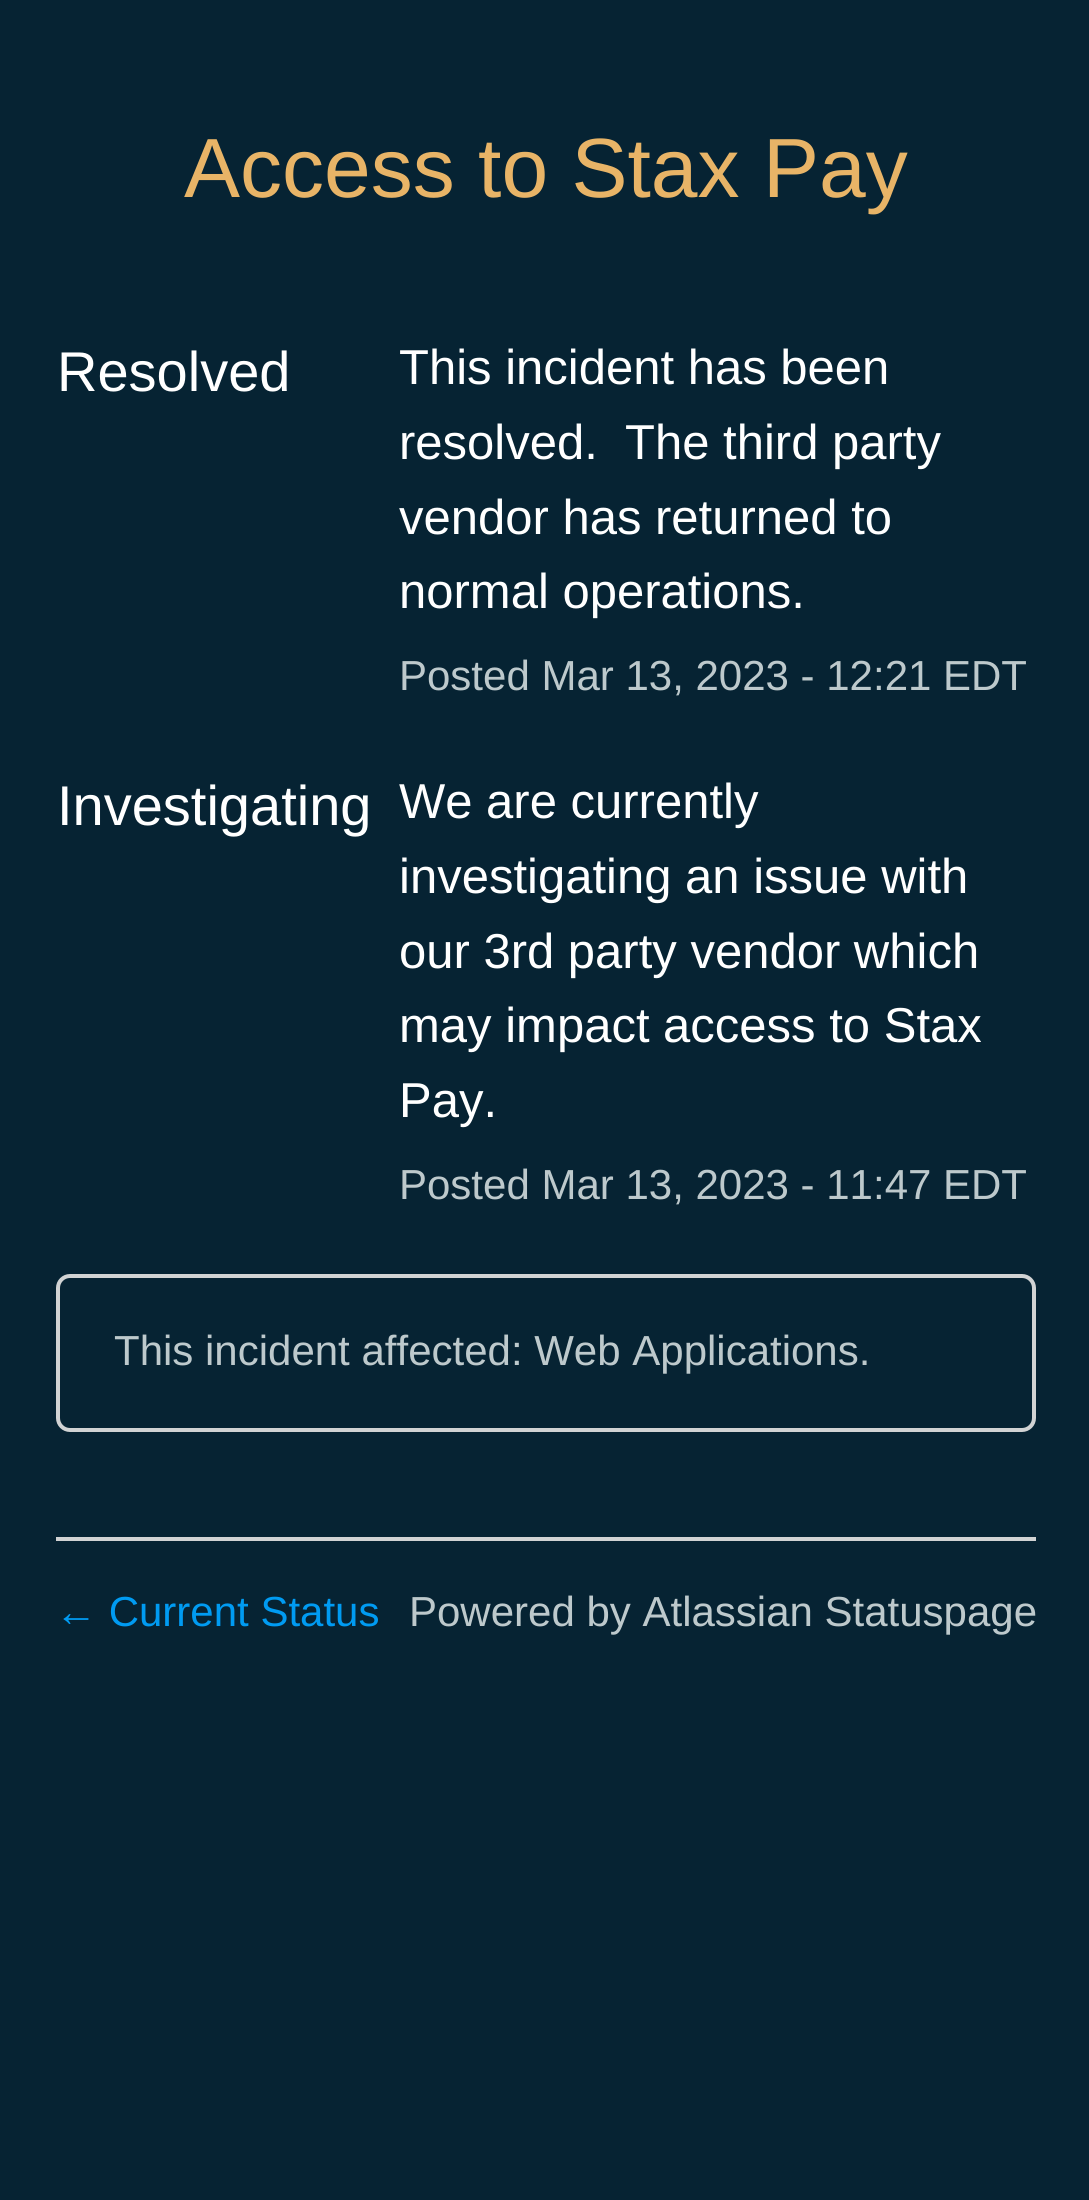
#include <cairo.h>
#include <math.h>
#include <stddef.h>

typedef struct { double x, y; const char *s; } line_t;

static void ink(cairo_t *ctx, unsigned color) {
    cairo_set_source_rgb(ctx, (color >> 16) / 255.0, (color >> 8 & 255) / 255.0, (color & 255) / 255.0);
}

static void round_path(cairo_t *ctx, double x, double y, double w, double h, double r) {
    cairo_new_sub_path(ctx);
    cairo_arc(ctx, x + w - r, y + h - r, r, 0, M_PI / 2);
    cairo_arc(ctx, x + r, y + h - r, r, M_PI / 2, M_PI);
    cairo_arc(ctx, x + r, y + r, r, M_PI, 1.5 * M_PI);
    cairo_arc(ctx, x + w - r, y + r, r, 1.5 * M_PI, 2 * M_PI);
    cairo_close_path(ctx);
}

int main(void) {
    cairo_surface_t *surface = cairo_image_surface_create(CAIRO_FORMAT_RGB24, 1089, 2200);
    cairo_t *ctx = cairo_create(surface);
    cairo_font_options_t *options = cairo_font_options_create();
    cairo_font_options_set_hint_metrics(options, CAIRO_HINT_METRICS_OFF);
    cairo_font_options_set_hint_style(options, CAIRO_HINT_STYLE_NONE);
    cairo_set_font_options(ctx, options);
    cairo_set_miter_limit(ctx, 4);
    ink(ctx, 0x062333);
    cairo_paint(ctx);
    cairo_select_font_face(ctx, "Liberation Sans", CAIRO_FONT_SLANT_NORMAL, CAIRO_FONT_WEIGHT_NORMAL);
    cairo_set_font_size(ctx, 84);
    ink(ctx, 0xE8B467);
    cairo_move_to(ctx, 184, 197);
    cairo_show_text(ctx, "Access to Stax Pay");
    cairo_set_font_size(ctx, 56);
    ink(ctx, 0xFFFFFF);
    cairo_move_to(ctx, 57, 391);
    cairo_show_text(ctx, "Resolved");
    cairo_set_font_size(ctx, 49);
    {
        static const line_t items[] = {
            {399, 384, "This incident has been"},
            {399, 459, "resolved.  The third party"},
            {399, 534, "vendor has returned to"},
            {399, 608, "normal operations."},
        };
        for (size_t i = 0; i < sizeof items / sizeof *items; i++) {
            cairo_move_to(ctx, items[i].x, items[i].y);
            cairo_show_text(ctx, items[i].s);
        }
    }
    cairo_set_font_size(ctx, 42);
    ink(ctx, 0xBDC9CC);
    cairo_move_to(ctx, 399, 690);
    cairo_show_text(ctx, "Posted Mar 13, 2023 - 12:21 EDT");
    cairo_set_font_size(ctx, 56);
    ink(ctx, 0xFFFFFF);
    cairo_move_to(ctx, 57, 825);
    cairo_show_text(ctx, "Investigating");
    cairo_set_font_size(ctx, 49);
    {
        static const line_t items[] = {
            {399, 818, "We are currently"},
            {399, 893, "investigating an issue with"},
            {399, 968, "our 3rd party vendor which"},
            {399, 1042, "may impact access to Stax"},
            {399, 1117, "Pay."},
        };
        for (size_t i = 0; i < sizeof items / sizeof *items; i++) {
            cairo_move_to(ctx, items[i].x, items[i].y);
            cairo_show_text(ctx, items[i].s);
        }
    }
    cairo_set_font_size(ctx, 42);
    ink(ctx, 0xBDC9CC);
    cairo_move_to(ctx, 399, 1199);
    cairo_show_text(ctx, "Posted Mar 13, 2023 - 11:47 EDT");
    round_path(ctx, 58, 1276, 976, 154, 12);
    ink(ctx, 0xD1D3D4);
    cairo_set_line_width(ctx, 4);
    cairo_stroke(ctx);
    ink(ctx, 0xBDC9CC);
    cairo_move_to(ctx, 114, 1365);
    cairo_show_text(ctx, "This incident affected: Web Applications.");
    ink(ctx, 0xD1D3D4);
    cairo_rectangle(ctx, 56, 1537, 980, 4);
    cairo_fill(ctx);
    ink(ctx, 0x009BF2);
    cairo_move_to(ctx, 55, 1626);
    cairo_show_text(ctx, "← Current Status");
    ink(ctx, 0xBDC9CC);
    cairo_move_to(ctx, 409, 1626);
    cairo_show_text(ctx, "Powered by Atlassian Statuspage");
    cairo_surface_write_to_png(surface, "image.png");
    cairo_font_options_destroy(options);
    cairo_destroy(ctx);
    cairo_surface_destroy(surface);
    return 0;
}
